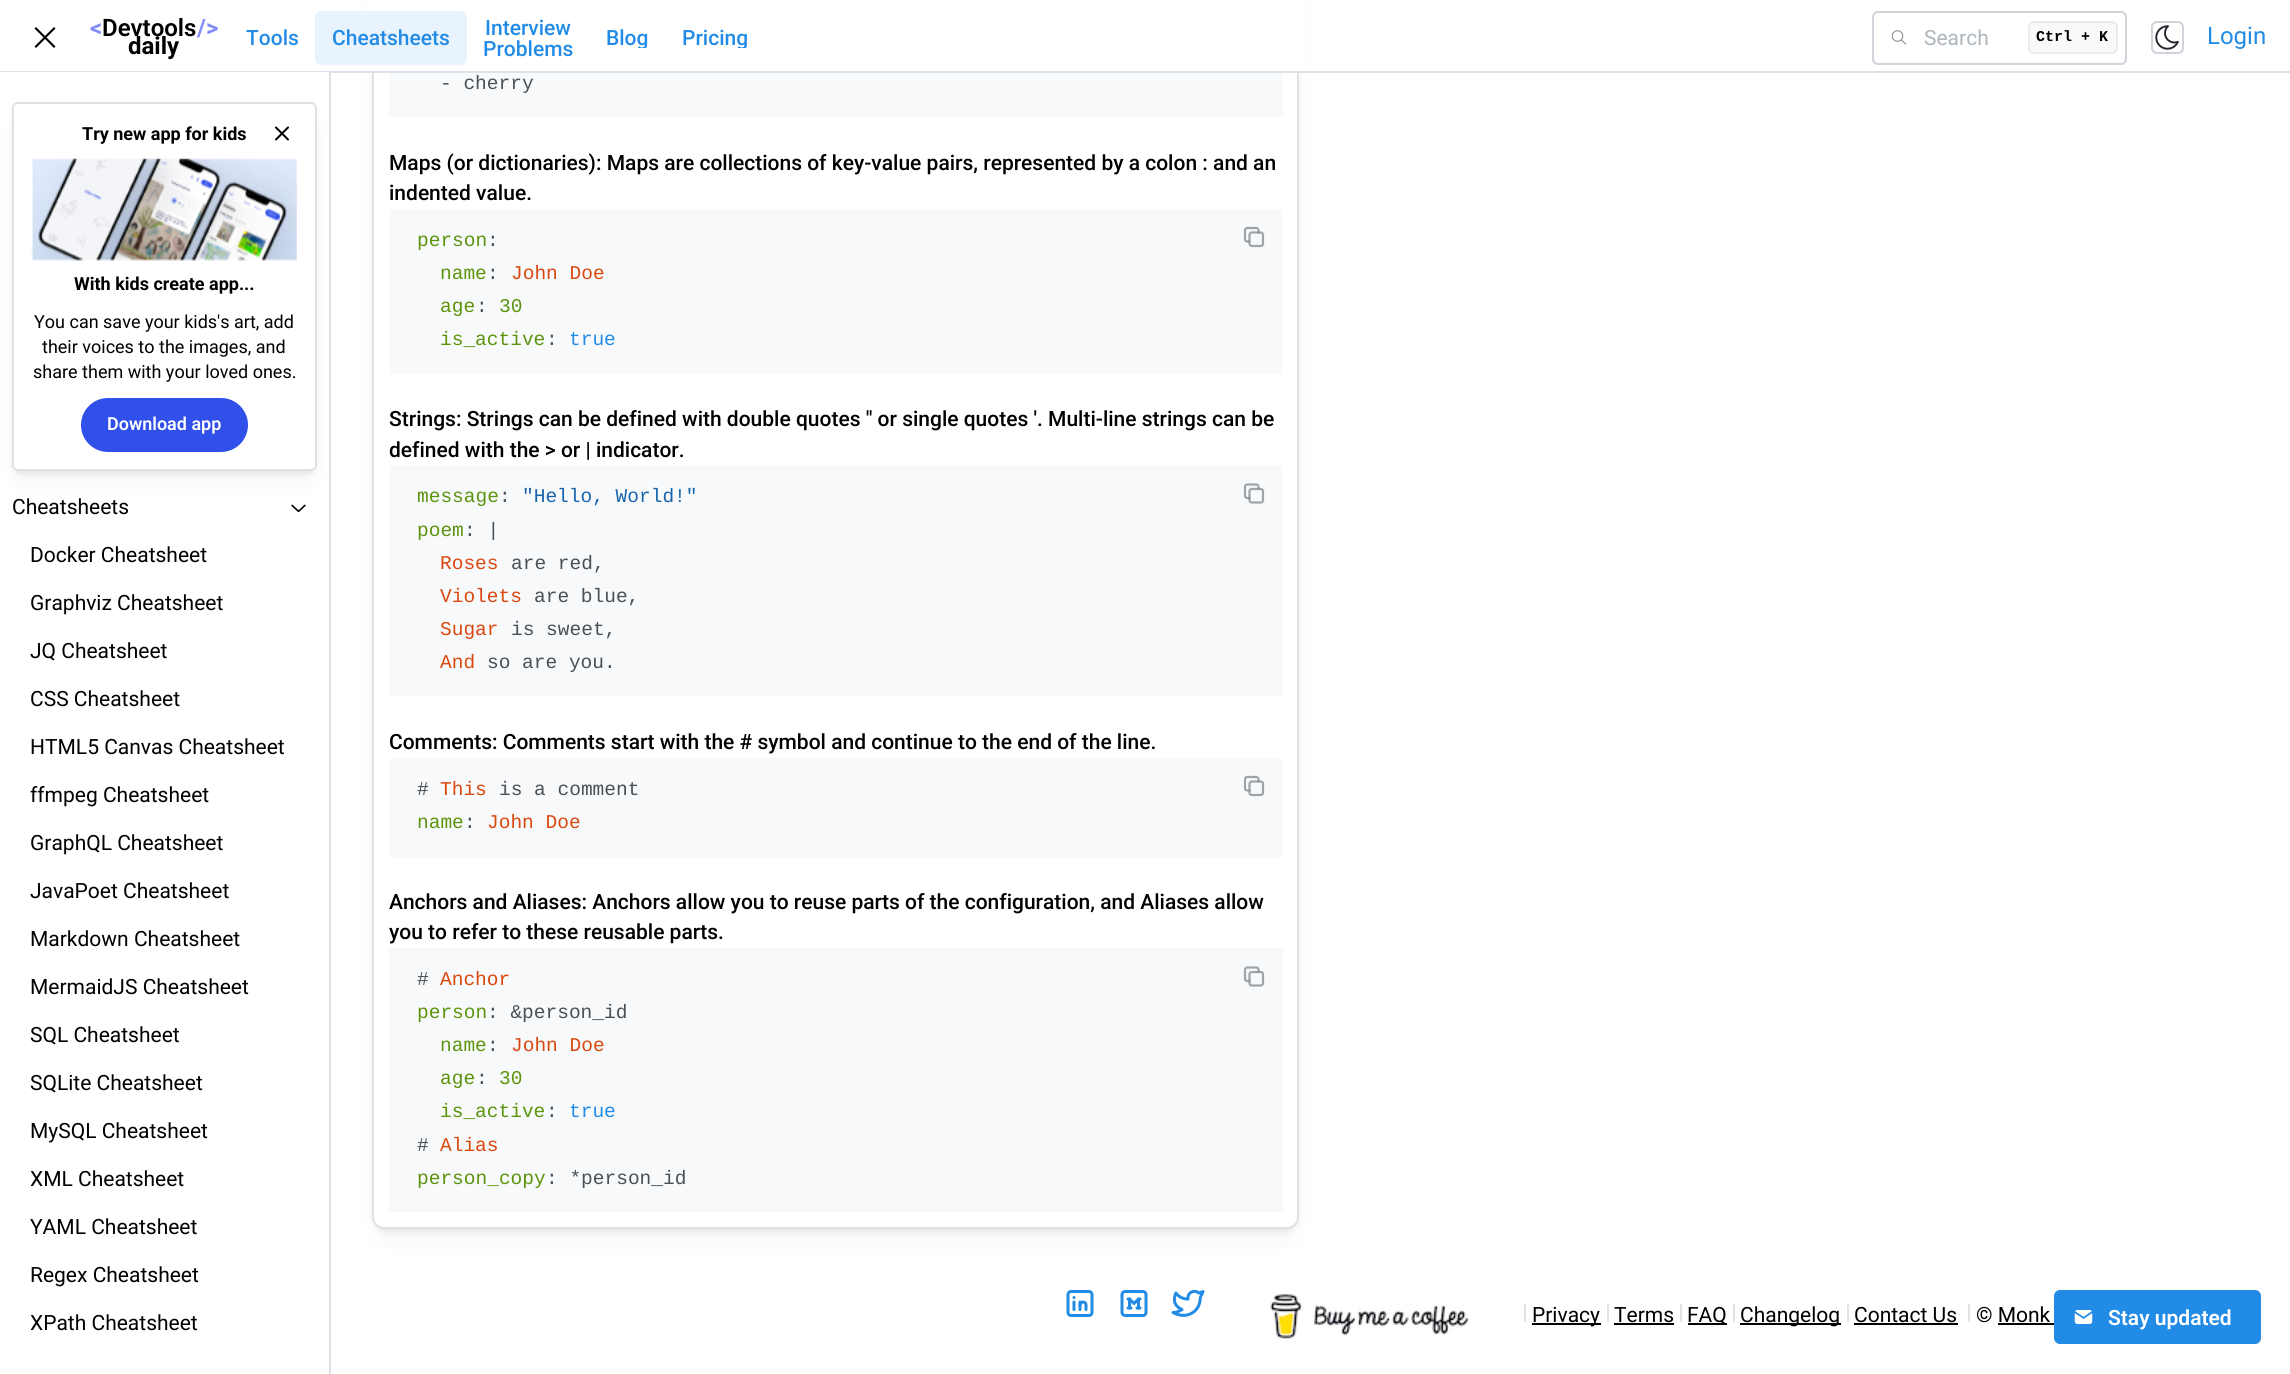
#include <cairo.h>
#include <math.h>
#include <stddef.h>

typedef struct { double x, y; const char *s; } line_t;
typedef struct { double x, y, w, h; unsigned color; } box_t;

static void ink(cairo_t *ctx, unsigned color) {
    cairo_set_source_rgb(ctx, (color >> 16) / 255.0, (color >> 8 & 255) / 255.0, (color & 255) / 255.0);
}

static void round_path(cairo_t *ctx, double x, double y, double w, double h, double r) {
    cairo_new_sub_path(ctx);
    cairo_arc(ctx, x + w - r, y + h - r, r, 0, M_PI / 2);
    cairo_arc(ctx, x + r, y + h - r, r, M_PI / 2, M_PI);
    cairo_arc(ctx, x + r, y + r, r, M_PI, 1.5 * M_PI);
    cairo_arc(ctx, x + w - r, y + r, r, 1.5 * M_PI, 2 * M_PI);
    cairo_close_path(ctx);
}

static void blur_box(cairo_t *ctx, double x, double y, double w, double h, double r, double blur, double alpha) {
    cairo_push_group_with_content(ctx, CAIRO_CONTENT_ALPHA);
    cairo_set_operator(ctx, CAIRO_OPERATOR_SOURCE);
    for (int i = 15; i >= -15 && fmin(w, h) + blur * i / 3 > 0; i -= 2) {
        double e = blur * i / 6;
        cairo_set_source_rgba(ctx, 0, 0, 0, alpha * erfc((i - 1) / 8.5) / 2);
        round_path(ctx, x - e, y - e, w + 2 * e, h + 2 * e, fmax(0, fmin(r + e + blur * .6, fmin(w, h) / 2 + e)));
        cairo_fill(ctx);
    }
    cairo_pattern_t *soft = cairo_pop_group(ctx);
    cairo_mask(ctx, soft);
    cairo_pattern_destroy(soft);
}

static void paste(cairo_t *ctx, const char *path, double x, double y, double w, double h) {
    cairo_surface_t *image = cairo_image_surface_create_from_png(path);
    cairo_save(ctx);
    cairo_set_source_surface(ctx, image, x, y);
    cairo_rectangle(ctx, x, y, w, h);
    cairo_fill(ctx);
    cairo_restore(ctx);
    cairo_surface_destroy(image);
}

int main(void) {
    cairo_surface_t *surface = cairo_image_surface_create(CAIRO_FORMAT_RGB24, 2290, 1374);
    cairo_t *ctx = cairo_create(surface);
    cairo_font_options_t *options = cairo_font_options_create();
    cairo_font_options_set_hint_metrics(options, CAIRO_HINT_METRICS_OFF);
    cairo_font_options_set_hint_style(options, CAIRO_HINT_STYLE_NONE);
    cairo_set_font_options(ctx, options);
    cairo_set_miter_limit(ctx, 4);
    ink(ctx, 0xFFFFFF);
    cairo_paint(ctx);
    ink(ctx, 0x000000);
    blur_box(ctx, 380, -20, 912, 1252, 5, 5, 0.04);
    blur_box(ctx, 380, -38, 912, 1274, 5, 11, 0.05);
    blur_box(ctx, 372, -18, 927, 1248, 12, 2, 0.05);
    ink(ctx, 0xFFFFFF);
    round_path(ctx, 373, -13, 925, 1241, 11);
    cairo_fill_preserve(ctx);
    ink(ctx, 0xDEE2E6);
    cairo_stroke(ctx);
    ink(ctx, 0xFFFFFF);
    cairo_rectangle(ctx, 369, 0, 934, 71);
    cairo_fill(ctx);
    ink(ctx, 0xDEE2E6);
    cairo_rectangle(ctx, 0, 71, 2290, 2);
    cairo_fill(ctx);
    ink(ctx, 0x000000);
    cairo_new_path(ctx);
    cairo_move_to(ctx, 36, 27);
    cairo_line_to(ctx, 55.5, 46.5);
    cairo_line_to(ctx, 54, 48);
    cairo_line_to(ctx, 34.5, 28.5);
    cairo_close_path(ctx);
    cairo_fill(ctx);
    cairo_new_path(ctx);
    cairo_move_to(ctx, 34.5, 46.5);
    cairo_line_to(ctx, 54, 27);
    cairo_line_to(ctx, 55.5, 28.5);
    cairo_line_to(ctx, 36, 48);
    cairo_close_path(ctx);
    cairo_fill(ctx);
    cairo_select_font_face(ctx, "Roboto", CAIRO_FONT_SLANT_NORMAL, CAIRO_FONT_WEIGHT_BOLD);
    cairo_set_font_size(ctx, 24);
    ink(ctx, 0x818CF8);
    cairo_move_to(ctx, 90, 36);
    cairo_show_text(ctx, "<");
    cairo_select_font_face(ctx, "Roboto SemiBold", CAIRO_FONT_SLANT_NORMAL, CAIRO_FONT_WEIGHT_NORMAL);
    ink(ctx, 0x000000);
    cairo_move_to(ctx, 102, 36);
    cairo_show_text(ctx, "Devtools");
    cairo_select_font_face(ctx, "Roboto", CAIRO_FONT_SLANT_NORMAL, CAIRO_FONT_WEIGHT_BOLD);
    ink(ctx, 0x818CF8);
    cairo_move_to(ctx, 197, 36);
    cairo_show_text(ctx, "/>");
    ink(ctx, 0x000000);
    cairo_move_to(ctx, 128, 54);
    cairo_show_text(ctx, "daily");
    cairo_select_font_face(ctx, "Roboto Medium", CAIRO_FONT_SLANT_NORMAL, CAIRO_FONT_WEIGHT_NORMAL);
    cairo_set_font_size(ctx, 21);
    ink(ctx, 0x228BE6);
    cairo_move_to(ctx, 246, 45);
    cairo_show_text(ctx, "Tools");
    ink(ctx, 0xE9F3FD);
    round_path(ctx, 315, 11, 152, 54, 6);
    cairo_fill(ctx);
    ink(ctx, 0x228BE6);
    {
        static const line_t items[] = {
            {332, 45, "Cheatsheets"},
            {485, 35, "Interview"},
            {483, 56, "Problems"},
        };
        for (size_t i = 0; i < sizeof items / sizeof *items; i++) {
            cairo_move_to(ctx, items[i].x, items[i].y);
            cairo_show_text(ctx, items[i].s);
        }
    }
    cairo_save(ctx);
    cairo_rectangle(ctx, 606, 27, 42, 21);
    cairo_clip(ctx);
    cairo_move_to(ctx, 606, 45);
    cairo_show_text(ctx, "Blog");
    cairo_restore(ctx);
    cairo_save(ctx);
    cairo_rectangle(ctx, 681, 27, 68, 21);
    cairo_clip(ctx);
    cairo_move_to(ctx, 682, 45);
    cairo_show_text(ctx, "Pricing");
    cairo_restore(ctx);
    round_path(ctx, 1873, 12, 253, 52, 5);
    ink(ctx, 0xCED4DA);
    cairo_stroke(ctx);
    paste(ctx, "media/1.png", 1891, 30, 16, 15);
    cairo_select_font_face(ctx, "Roboto", CAIRO_FONT_SLANT_NORMAL, CAIRO_FONT_WEIGHT_NORMAL);
    ink(ctx, 0xADB5BD);
    cairo_move_to(ctx, 1924, 45);
    cairo_show_text(ctx, "Search");
    ink(ctx, 0xF8F9FA);
    round_path(ctx, 2029, 22, 88, 31, 5);
    cairo_fill_preserve(ctx);
    ink(ctx, 0xE9ECEF);
    cairo_stroke(ctx);
    cairo_select_font_face(ctx, "Liberation Mono", CAIRO_FONT_SLANT_NORMAL, CAIRO_FONT_WEIGHT_BOLD);
    cairo_set_font_size(ctx, 15);
    ink(ctx, 0x000000);
    cairo_move_to(ctx, 2036, 41);
    cairo_show_text(ctx, "Ctrl + K");
    round_path(ctx, 2152, 22, 31, 31, 5);
    ink(ctx, 0xCED4DA);
    cairo_stroke(ctx);
    paste(ctx, "media/2.png", 2155, 25, 24, 25);
    cairo_select_font_face(ctx, "Roboto", CAIRO_FONT_SLANT_NORMAL, CAIRO_FONT_WEIGHT_NORMAL);
    cairo_set_font_size(ctx, 24);
    ink(ctx, 0x228BE6);
    cairo_move_to(ctx, 2207, 44);
    cairo_show_text(ctx, "Login");
    ink(ctx, 0xFFFFFF);
    cairo_rectangle(ctx, 0, 72, 329, 1);
    cairo_fill(ctx);
    ink(ctx, 0xDEE2E6);
    cairo_rectangle(ctx, 329, 72, 2, 1302);
    cairo_fill(ctx);
    ink(ctx, 0x000000);
    blur_box(ctx, 20, 120, 289, 354, 0, 5, 0.04);
    blur_box(ctx, 20, 125, 289, 354, 0, 11, 0.05);
    blur_box(ctx, 12, 104, 305, 369, 6, 2, 0.05);
    ink(ctx, 0xFFFFFF);
    round_path(ctx, 13, 103, 303, 367, 5);
    cairo_fill_preserve(ctx);
    ink(ctx, 0xDEE2E6);
    cairo_stroke(ctx);
    cairo_select_font_face(ctx, "Roboto", CAIRO_FONT_SLANT_NORMAL, CAIRO_FONT_WEIGHT_BOLD);
    cairo_set_font_size(ctx, 18);
    ink(ctx, 0x000000);
    cairo_move_to(ctx, 82, 140);
    cairo_show_text(ctx, "Try new app for kids");
    cairo_new_path(ctx);
    cairo_move_to(ctx, 288, 127.5);
    cairo_line_to(ctx, 276, 139.5);
    cairo_move_to(ctx, 276, 127.5);
    cairo_line_to(ctx, 288, 139.5);
    cairo_set_line_cap(ctx, CAIRO_LINE_CAP_ROUND);
    cairo_set_line_join(ctx, CAIRO_LINE_JOIN_ROUND);
    cairo_stroke(ctx);
    paste(ctx, "media/3.png", 31, 158, 266, 103);
    cairo_move_to(ctx, 74, 290);
    cairo_show_text(ctx, "With kids create app...");
    cairo_select_font_face(ctx, "Roboto", CAIRO_FONT_SLANT_NORMAL, CAIRO_FONT_WEIGHT_NORMAL);
    {
        static const line_t items[] = {
            {34, 328, "You can save your kids's art, add"},
            {42, 353, "their voices to the images, and"},
            {33, 378, "share them with your loved ones."},
        };
        for (size_t i = 0; i < sizeof items / sizeof *items; i++) {
            cairo_move_to(ctx, items[i].x, items[i].y);
            cairo_show_text(ctx, items[i].s);
        }
    }
    ink(ctx, 0x3050E9);
    round_path(ctx, 81, 398, 167, 54, 27);
    cairo_fill(ctx);
    cairo_select_font_face(ctx, "Roboto SemiBold", CAIRO_FONT_SLANT_NORMAL, CAIRO_FONT_WEIGHT_NORMAL);
    ink(ctx, 0xFFFFFF);
    cairo_move_to(ctx, 107, 430);
    cairo_show_text(ctx, "Download app");
    cairo_select_font_face(ctx, "Roboto", CAIRO_FONT_SLANT_NORMAL, CAIRO_FONT_WEIGHT_NORMAL);
    cairo_set_font_size(ctx, 21);
    ink(ctx, 0x000000);
    cairo_move_to(ctx, 12, 514);
    cairo_show_text(ctx, "Cheatsheets");
    paste(ctx, "media/4.png", 291, 504, 15, 9);
    {
        static const line_t items[] = {
            {30, 562, "Docker Cheatsheet"},
            {30, 610, "Graphviz Cheatsheet"},
            {30, 658, "JQ Cheatsheet"},
            {30, 706, "CSS Cheatsheet"},
            {30, 754, "HTML5 Canvas Cheatsheet"},
            {30, 802, "ffmpeg Cheatsheet"},
            {30, 850, "GraphQL Cheatsheet"},
            {30, 898, "JavaPoet Cheatsheet"},
            {30, 946, "Markdown Cheatsheet"},
            {30, 994, "MermaidJS Cheatsheet"},
            {30, 1042, "SQL Cheatsheet"},
            {30, 1090, "SQLite Cheatsheet"},
            {30, 1138, "MySQL Cheatsheet"},
            {30, 1186, "XML Cheatsheet"},
            {30, 1234, "YAML Cheatsheet"},
            {30, 1282, "Regex Cheatsheet"},
            {30, 1330, "XPath Cheatsheet"},
        };
        for (size_t i = 0; i < sizeof items / sizeof *items; i++) {
            cairo_move_to(ctx, items[i].x, items[i].y);
            cairo_show_text(ctx, items[i].s);
        }
    }
    ink(ctx, 0xF8F9FA);
    cairo_rectangle(ctx, 389, 73, 894, 44);
    cairo_fill(ctx);
    cairo_select_font_face(ctx, "Liberation Mono", CAIRO_FONT_SLANT_NORMAL, CAIRO_FONT_WEIGHT_NORMAL);
    cairo_set_font_size(ctx, 19.5);
    ink(ctx, 0x495057);
    cairo_move_to(ctx, 440, 89);
    cairo_show_text(ctx, "- cherry");
    cairo_select_font_face(ctx, "Roboto Medium", CAIRO_FONT_SLANT_NORMAL, CAIRO_FONT_WEIGHT_NORMAL);
    cairo_set_font_size(ctx, 21);
    ink(ctx, 0x000000);
    cairo_move_to(ctx, 389, 170);
    cairo_show_text(ctx, "Maps (or dictionaries): Maps are collections of key-value pairs, represented by a colon : and an");
    cairo_move_to(ctx, 389, 200);
    cairo_show_text(ctx, "indented value.");
    ink(ctx, 0xF8F9FA);
    cairo_rectangle(ctx, 389, 209, 894, 165);
    cairo_fill(ctx);
    cairo_select_font_face(ctx, "Liberation Mono", CAIRO_FONT_SLANT_NORMAL, CAIRO_FONT_WEIGHT_NORMAL);
    cairo_set_font_size(ctx, 19.5);
    ink(ctx, 0x5C940D);
    cairo_move_to(ctx, 417, 246);
    cairo_show_text(ctx, "person");
    ink(ctx, 0x495057);
    cairo_move_to(ctx, 487, 246);
    cairo_show_text(ctx, ":");
    ink(ctx, 0x5C940D);
    cairo_move_to(ctx, 440, 279);
    cairo_show_text(ctx, "name");
    ink(ctx, 0x495057);
    cairo_move_to(ctx, 487, 279);
    cairo_show_text(ctx, ":");
    ink(ctx, 0xD9480F);
    cairo_move_to(ctx, 511, 279);
    cairo_show_text(ctx, "John Doe");
    ink(ctx, 0x5C940D);
    cairo_move_to(ctx, 440, 312);
    cairo_show_text(ctx, "age");
    ink(ctx, 0x495057);
    cairo_move_to(ctx, 476, 312);
    cairo_show_text(ctx, ":");
    ink(ctx, 0x5C940D);
    cairo_move_to(ctx, 499, 312);
    cairo_show_text(ctx, "30");
    cairo_move_to(ctx, 440, 345);
    cairo_show_text(ctx, "is_active");
    ink(ctx, 0x495057);
    cairo_move_to(ctx, 546, 345);
    cairo_show_text(ctx, ":");
    ink(ctx, 0x228BE6);
    cairo_move_to(ctx, 569, 345);
    cairo_show_text(ctx, "true");
    paste(ctx, "media/5.png", 1243, 226, 22, 22);
    cairo_select_font_face(ctx, "Roboto Medium", CAIRO_FONT_SLANT_NORMAL, CAIRO_FONT_WEIGHT_NORMAL);
    cairo_set_font_size(ctx, 21);
    ink(ctx, 0x000000);
    cairo_move_to(ctx, 389, 426);
    cairo_show_text(ctx, "Strings: Strings can be defined with double quotes \" or single quotes '. Multi-line strings can be");
    cairo_move_to(ctx, 389, 457);
    cairo_show_text(ctx, "defined with the > or | indicator.");
    ink(ctx, 0xF8F9FA);
    cairo_rectangle(ctx, 389, 465, 894, 231);
    cairo_fill(ctx);
    cairo_select_font_face(ctx, "Liberation Mono", CAIRO_FONT_SLANT_NORMAL, CAIRO_FONT_WEIGHT_NORMAL);
    cairo_set_font_size(ctx, 19.5);
    ink(ctx, 0x5C940D);
    cairo_move_to(ctx, 417, 502);
    cairo_show_text(ctx, "message");
    ink(ctx, 0x495057);
    cairo_move_to(ctx, 499, 502);
    cairo_show_text(ctx, ":");
    ink(ctx, 0x1864AB);
    cairo_move_to(ctx, 522, 502);
    cairo_show_text(ctx, "\"Hello, World!\"");
    ink(ctx, 0x5C940D);
    cairo_move_to(ctx, 417, 536);
    cairo_show_text(ctx, "poem");
    ink(ctx, 0x495057);
    cairo_move_to(ctx, 464, 536);
    cairo_show_text(ctx, ": |");
    ink(ctx, 0xD9480F);
    cairo_move_to(ctx, 440, 569);
    cairo_show_text(ctx, "Roses");
    ink(ctx, 0x495057);
    cairo_move_to(ctx, 511, 569);
    cairo_show_text(ctx, "are red,");
    ink(ctx, 0xD9480F);
    cairo_move_to(ctx, 440, 602);
    cairo_show_text(ctx, "Violets");
    ink(ctx, 0x495057);
    cairo_move_to(ctx, 534, 602);
    cairo_show_text(ctx, "are blue,");
    ink(ctx, 0xD9480F);
    cairo_move_to(ctx, 440, 635);
    cairo_show_text(ctx, "Sugar");
    ink(ctx, 0x495057);
    cairo_move_to(ctx, 511, 635);
    cairo_show_text(ctx, "is sweet,");
    ink(ctx, 0xD9480F);
    cairo_move_to(ctx, 440, 668);
    cairo_show_text(ctx, "And");
    ink(ctx, 0x495057);
    cairo_move_to(ctx, 487, 668);
    cairo_show_text(ctx, "so are you.");
    paste(ctx, "media/6.png", 1243, 483, 22, 21);
    cairo_select_font_face(ctx, "Roboto Medium", CAIRO_FONT_SLANT_NORMAL, CAIRO_FONT_WEIGHT_NORMAL);
    cairo_set_font_size(ctx, 21);
    ink(ctx, 0x000000);
    cairo_move_to(ctx, 389, 749);
    cairo_show_text(ctx, "Comments: Comments start with the # symbol and continue to the end of the line.");
    ink(ctx, 0xF8F9FA);
    cairo_rectangle(ctx, 389, 758, 894, 99);
    cairo_fill(ctx);
    cairo_select_font_face(ctx, "Liberation Mono", CAIRO_FONT_SLANT_NORMAL, CAIRO_FONT_WEIGHT_NORMAL);
    cairo_set_font_size(ctx, 19.5);
    ink(ctx, 0x495057);
    cairo_move_to(ctx, 417, 795);
    cairo_show_text(ctx, "#");
    ink(ctx, 0xD9480F);
    cairo_move_to(ctx, 440, 795);
    cairo_show_text(ctx, "This");
    ink(ctx, 0x495057);
    cairo_move_to(ctx, 499, 795);
    cairo_show_text(ctx, "is a comment");
    ink(ctx, 0x5C940D);
    cairo_move_to(ctx, 417, 828);
    cairo_show_text(ctx, "name");
    ink(ctx, 0x495057);
    cairo_move_to(ctx, 464, 828);
    cairo_show_text(ctx, ":");
    ink(ctx, 0xD9480F);
    cairo_move_to(ctx, 487, 828);
    cairo_show_text(ctx, "John Doe");
    paste(ctx, "media/5.png", 1243, 775, 22, 22);
    cairo_select_font_face(ctx, "Roboto Medium", CAIRO_FONT_SLANT_NORMAL, CAIRO_FONT_WEIGHT_NORMAL);
    cairo_set_font_size(ctx, 21);
    ink(ctx, 0x000000);
    cairo_move_to(ctx, 389, 909);
    cairo_show_text(ctx, "Anchors and Aliases: Anchors allow you to reuse parts of the configuration, and Aliases allow");
    cairo_move_to(ctx, 389, 939);
    cairo_show_text(ctx, "you to refer to these reusable parts.");
    ink(ctx, 0xF8F9FA);
    cairo_rectangle(ctx, 389, 948, 894, 264);
    cairo_fill(ctx);
    cairo_select_font_face(ctx, "Liberation Mono", CAIRO_FONT_SLANT_NORMAL, CAIRO_FONT_WEIGHT_NORMAL);
    cairo_set_font_size(ctx, 19.5);
    ink(ctx, 0x495057);
    cairo_move_to(ctx, 417, 985);
    cairo_show_text(ctx, "#");
    ink(ctx, 0xD9480F);
    cairo_move_to(ctx, 440, 985);
    cairo_show_text(ctx, "Anchor");
    ink(ctx, 0x5C940D);
    cairo_move_to(ctx, 417, 1018);
    cairo_show_text(ctx, "person");
    ink(ctx, 0x495057);
    cairo_move_to(ctx, 487, 1018);
    cairo_show_text(ctx, ": &person_id");
    ink(ctx, 0x5C940D);
    cairo_move_to(ctx, 440, 1051);
    cairo_show_text(ctx, "name");
    ink(ctx, 0x495057);
    cairo_move_to(ctx, 487, 1051);
    cairo_show_text(ctx, ":");
    ink(ctx, 0xD9480F);
    cairo_move_to(ctx, 511, 1051);
    cairo_show_text(ctx, "John Doe");
    ink(ctx, 0x5C940D);
    cairo_move_to(ctx, 440, 1084);
    cairo_show_text(ctx, "age");
    ink(ctx, 0x495057);
    cairo_move_to(ctx, 476, 1084);
    cairo_show_text(ctx, ":");
    ink(ctx, 0x5C940D);
    cairo_move_to(ctx, 499, 1084);
    cairo_show_text(ctx, "30");
    cairo_move_to(ctx, 440, 1117);
    cairo_show_text(ctx, "is_active");
    ink(ctx, 0x495057);
    cairo_move_to(ctx, 546, 1117);
    cairo_show_text(ctx, ":");
    ink(ctx, 0x228BE6);
    cairo_move_to(ctx, 569, 1117);
    cairo_show_text(ctx, "true");
    ink(ctx, 0x495057);
    cairo_move_to(ctx, 417, 1151);
    cairo_show_text(ctx, "#");
    ink(ctx, 0xD9480F);
    cairo_move_to(ctx, 440, 1151);
    cairo_show_text(ctx, "Alias");
    ink(ctx, 0x5C940D);
    cairo_move_to(ctx, 417, 1184);
    cairo_show_text(ctx, "person_copy");
    ink(ctx, 0x495057);
    cairo_move_to(ctx, 546, 1184);
    cairo_show_text(ctx, ": *person_id");
    paste(ctx, "media/6.png", 1243, 966, 22, 21);
    paste(ctx, "media/7.png", 1066, 1290, 28, 27);
    paste(ctx, "media/8.png", 1120, 1290, 28, 27);
    paste(ctx, "media/9.png", 1171, 1289, 34, 28);
    paste(ctx, "media/10.png", 1270, 1294, 199, 45);
    ink(ctx, 0xE0E3E8);
    cairo_rectangle(ctx, 1524, 1304, 2, 18);
    cairo_fill(ctx);
    ink(ctx, 0x000000);
    cairo_rectangle(ctx, 1532, 1323, 69, 2);
    cairo_fill(ctx);
    cairo_select_font_face(ctx, "Roboto", CAIRO_FONT_SLANT_NORMAL, CAIRO_FONT_WEIGHT_NORMAL);
    cairo_set_font_size(ctx, 21);
    cairo_move_to(ctx, 1532, 1322);
    cairo_show_text(ctx, "Privacy");
    ink(ctx, 0xE0E3E8);
    cairo_rectangle(ctx, 1607, 1304, 2, 18);
    cairo_fill(ctx);
    ink(ctx, 0x000000);
    cairo_move_to(ctx, 1614, 1322);
    cairo_show_text(ctx, "Terms");
    {
        static const box_t items[] = {
            {1614, 1323, 60, 2, 0x000000},
            {1680, 1304, 2, 18, 0xE0E3E8},
            {1688, 1323, 39, 2, 0x000000},
        };
        for (size_t i = 0; i < sizeof items / sizeof *items; i++) {
            ink(ctx, items[i].color);
            cairo_rectangle(ctx, items[i].x, items[i].y, items[i].w, items[i].h);
            cairo_fill(ctx);
        }
    }
    cairo_move_to(ctx, 1687, 1322);
    cairo_show_text(ctx, "FAQ");
    ink(ctx, 0xE0E3E8);
    cairo_rectangle(ctx, 1733, 1304, 2, 18);
    cairo_fill(ctx);
    ink(ctx, 0x000000);
    cairo_rectangle(ctx, 1740, 1323, 101, 2);
    cairo_fill(ctx);
    cairo_move_to(ctx, 1740, 1322);
    cairo_show_text(ctx, "Changelog");
    ink(ctx, 0xE0E3E8);
    cairo_rectangle(ctx, 1847, 1304, 2, 18);
    cairo_fill(ctx);
    ink(ctx, 0x000000);
    cairo_move_to(ctx, 1854, 1322);
    cairo_show_text(ctx, "Contact Us");
    cairo_rectangle(ctx, 1854, 1323, 104, 2);
    cairo_fill(ctx);
    ink(ctx, 0xE0E3E8);
    cairo_rectangle(ctx, 1968, 1304, 2, 18);
    cairo_fill(ctx);
    ink(ctx, 0x000000);
    cairo_move_to(ctx, 1976, 1322);
    cairo_show_text(ctx, "© Monk");
    cairo_rectangle(ctx, 1998, 1323, 56, 2);
    cairo_fill(ctx);
    ink(ctx, 0x228BE6);
    round_path(ctx, 2054, 1290, 207, 54, 6);
    cairo_fill(ctx);
    paste(ctx, "media/11.png", 2074, 1310, 19, 14);
    cairo_select_font_face(ctx, "Roboto SemiBold", CAIRO_FONT_SLANT_NORMAL, CAIRO_FONT_WEIGHT_NORMAL);
    ink(ctx, 0xFFFFFF);
    cairo_move_to(ctx, 2108, 1325);
    cairo_show_text(ctx, "Stay updated");
    cairo_surface_write_to_png(surface, "image.png");
    cairo_font_options_destroy(options);
    cairo_destroy(ctx);
    cairo_surface_destroy(surface);
    return 0;
}
